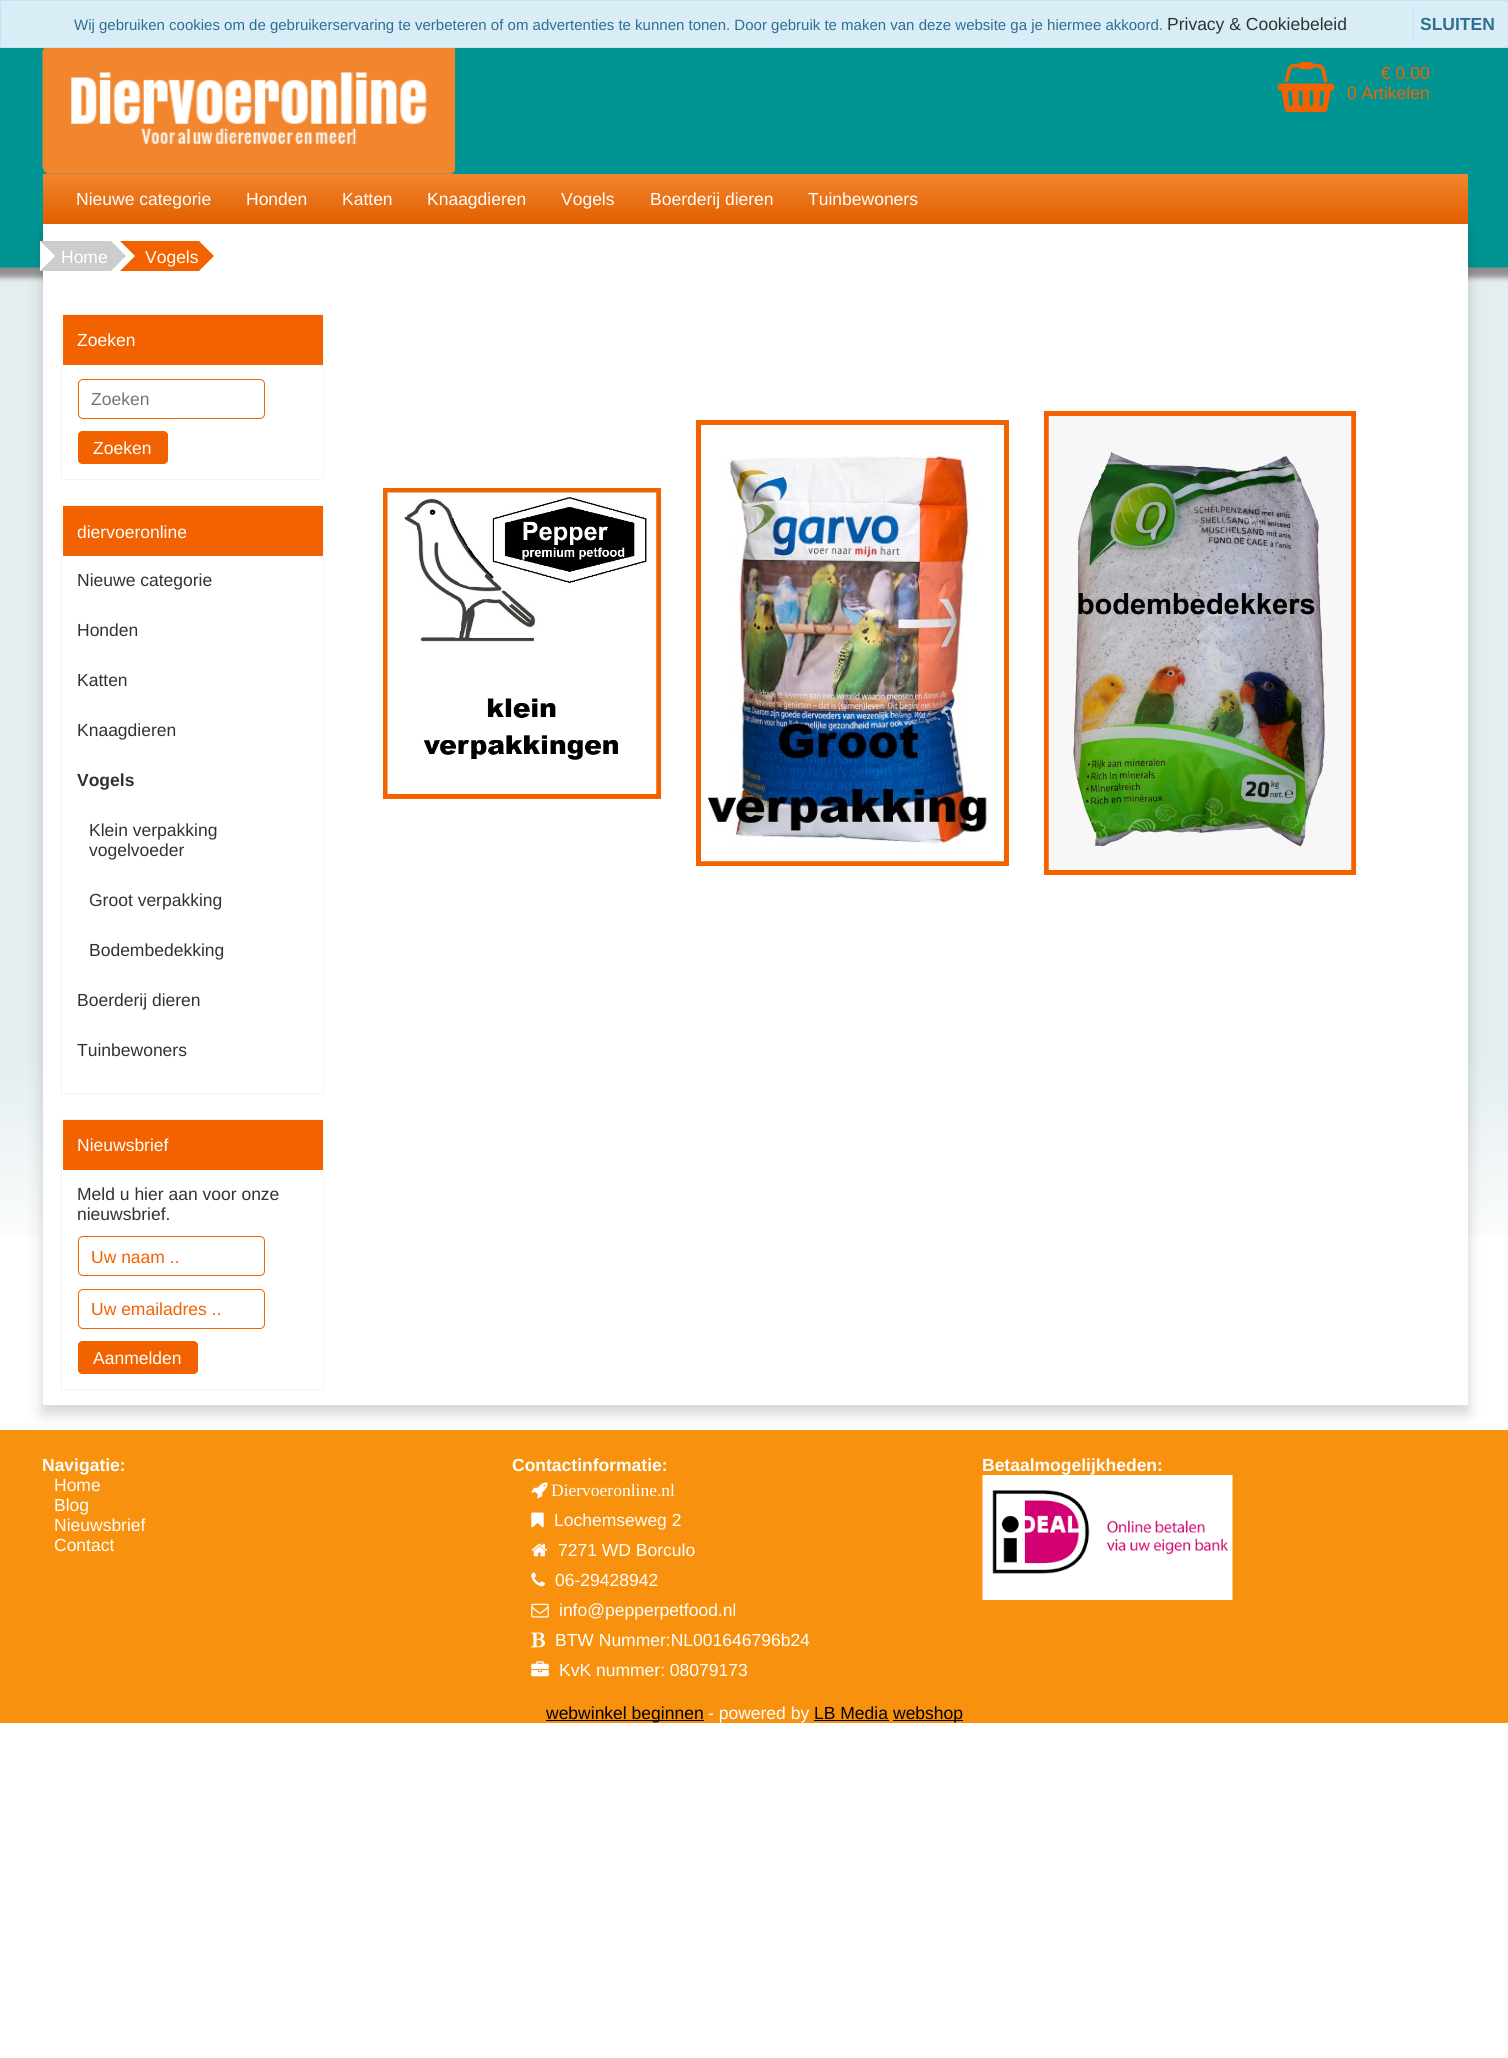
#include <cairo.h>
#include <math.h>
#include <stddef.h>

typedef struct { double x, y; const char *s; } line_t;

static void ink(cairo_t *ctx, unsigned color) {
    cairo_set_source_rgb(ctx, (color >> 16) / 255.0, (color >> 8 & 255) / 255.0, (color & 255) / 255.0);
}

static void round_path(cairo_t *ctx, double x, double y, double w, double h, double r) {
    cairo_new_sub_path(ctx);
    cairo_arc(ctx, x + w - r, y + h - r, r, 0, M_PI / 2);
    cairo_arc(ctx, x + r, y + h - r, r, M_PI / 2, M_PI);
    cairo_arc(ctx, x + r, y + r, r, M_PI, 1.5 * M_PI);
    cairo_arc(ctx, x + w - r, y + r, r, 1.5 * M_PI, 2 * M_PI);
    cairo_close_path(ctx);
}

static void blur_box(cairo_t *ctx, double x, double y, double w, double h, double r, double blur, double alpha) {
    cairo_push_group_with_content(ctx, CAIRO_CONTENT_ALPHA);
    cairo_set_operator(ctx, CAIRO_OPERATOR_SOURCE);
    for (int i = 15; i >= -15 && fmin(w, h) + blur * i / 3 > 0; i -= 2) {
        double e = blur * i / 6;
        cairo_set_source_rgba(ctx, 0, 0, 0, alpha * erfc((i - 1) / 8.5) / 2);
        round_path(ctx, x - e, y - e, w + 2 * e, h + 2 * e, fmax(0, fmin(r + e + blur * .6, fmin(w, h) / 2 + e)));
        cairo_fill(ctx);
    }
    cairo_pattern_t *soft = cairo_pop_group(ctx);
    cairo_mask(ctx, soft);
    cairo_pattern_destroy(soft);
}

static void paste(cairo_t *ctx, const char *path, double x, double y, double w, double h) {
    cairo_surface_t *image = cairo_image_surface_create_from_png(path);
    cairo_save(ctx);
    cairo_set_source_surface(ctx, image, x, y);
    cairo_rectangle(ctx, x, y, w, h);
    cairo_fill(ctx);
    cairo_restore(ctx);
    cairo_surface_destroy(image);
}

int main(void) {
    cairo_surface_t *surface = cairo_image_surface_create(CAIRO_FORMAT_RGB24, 1508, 2058);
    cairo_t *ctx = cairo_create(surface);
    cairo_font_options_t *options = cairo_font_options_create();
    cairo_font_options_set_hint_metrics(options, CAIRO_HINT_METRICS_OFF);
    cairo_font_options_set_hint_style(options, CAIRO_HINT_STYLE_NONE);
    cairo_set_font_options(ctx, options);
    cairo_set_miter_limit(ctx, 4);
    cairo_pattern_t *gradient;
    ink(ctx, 0xFFFFFF);
    cairo_paint(ctx);
    paste(ctx, "media/1.png", 0, 48, 1508, 1187);
    ink(ctx, 0xD9EDF7);
    cairo_rectangle(ctx, 0.5, 0.5, 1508, 47);
    cairo_fill_preserve(ctx);
    ink(ctx, 0xBCE7F1);
    cairo_set_line_width(ctx, 1);
    cairo_stroke(ctx);
    cairo_select_font_face(ctx, "Liberation Sans", CAIRO_FONT_SLANT_NORMAL, CAIRO_FONT_WEIGHT_NORMAL);
    cairo_set_font_size(ctx, 15);
    ink(ctx, 0x306F8F);
    cairo_move_to(ctx, 74, 30);
    cairo_show_text(ctx, "Wij gebruiken cookies om de gebruikerservaring te verbeteren of om advertenties te kunnen tonen. Door gebruik te maken van deze website ga je hiermee akkoord.");
    cairo_set_font_size(ctx, 17.5);
    ink(ctx, 0x303330);
    cairo_move_to(ctx, 1167, 30);
    cairo_show_text(ctx, "Privacy & Cookiebeleid");
    ink(ctx, 0xBCE7F1);
    cairo_rectangle(ctx, 1413, 8, 1, 32);
    cairo_fill(ctx);
    cairo_select_font_face(ctx, "Liberation Sans", CAIRO_FONT_SLANT_NORMAL, CAIRO_FONT_WEIGHT_BOLD);
    ink(ctx, 0x306F8F);
    cairo_move_to(ctx, 1420, 30);
    cairo_show_text(ctx, "SLUITEN");
    paste(ctx, "media/2.png", 42, 48, 413, 126);
    paste(ctx, "media/3.png", 1277, 62, 58, 51);
    cairo_select_font_face(ctx, "Liberation Sans", CAIRO_FONT_SLANT_NORMAL, CAIRO_FONT_WEIGHT_NORMAL);
    ink(ctx, 0xF26200);
    cairo_move_to(ctx, 1381, 79);
    cairo_show_text(ctx, "€ 0.00");
    cairo_move_to(ctx, 1347, 99);
    cairo_show_text(ctx, "0 Artikelen");
    ink(ctx, 0x000000);
    blur_box(ctx, 43, 231, 1425, 1182, 0, 7.5, 0.18);
    gradient = cairo_pattern_create_linear(755, 174, 755, 224);
    cairo_pattern_add_color_stop_rgba(gradient, 0, 0.949, 0.525, 0.18, 1);
    cairo_pattern_add_color_stop_rgba(gradient, 1, 0.886, 0.369, 0, 1);
    cairo_set_source(ctx, gradient);
    cairo_pattern_destroy(gradient);
    cairo_rectangle(ctx, 43, 174, 1425, 50);
    cairo_fill(ctx);
    ink(ctx, 0xFFFFFF);
    {
        static const line_t items[] = {
            {76, 205, "Nieuwe categorie"},
            {246, 205, "Honden"},
            {342, 205, "Katten"},
            {427, 205, "Knaagdieren"},
            {561, 205, "Vogels"},
            {650, 205, "Boerderij dieren"},
            {808, 205, "Tuinbewoners"},
        };
        for (size_t i = 0; i < sizeof items / sizeof *items; i++) {
            cairo_move_to(ctx, items[i].x, items[i].y);
            cairo_show_text(ctx, items[i].s);
        }
    }
    cairo_rectangle(ctx, 43, 224, 1425, 1181);
    cairo_fill(ctx);
    ink(ctx, 0xCCCCCC);
    cairo_rectangle(ctx, 40, 241, 71, 30);
    cairo_fill(ctx);
    ink(ctx, 0xFFFFFF);
    cairo_new_path(ctx);
    cairo_move_to(ctx, 40, 271);
    cairo_line_to(ctx, 40, 241);
    cairo_line_to(ctx, 55, 256);
    cairo_close_path(ctx);
    cairo_fill(ctx);
    cairo_move_to(ctx, 61, 263);
    cairo_show_text(ctx, "Home");
    ink(ctx, 0xF26200);
    cairo_rectangle(ctx, 120, 241, 79, 30);
    cairo_fill(ctx);
    ink(ctx, 0xFFFFFF);
    cairo_new_path(ctx);
    cairo_move_to(ctx, 120, 271);
    cairo_line_to(ctx, 120, 241);
    cairo_line_to(ctx, 135, 256);
    cairo_close_path(ctx);
    cairo_fill(ctx);
    ink(ctx, 0xCCCCCC);
    cairo_new_path(ctx);
    cairo_move_to(ctx, 111, 271);
    cairo_line_to(ctx, 111, 241);
    cairo_line_to(ctx, 126, 256);
    cairo_close_path(ctx);
    cairo_fill(ctx);
    ink(ctx, 0xFFFFFF);
    cairo_move_to(ctx, 145, 263);
    cairo_show_text(ctx, "Vogels");
    ink(ctx, 0xF26200);
    cairo_new_path(ctx);
    cairo_move_to(ctx, 199, 271);
    cairo_line_to(ctx, 199, 241);
    cairo_line_to(ctx, 214, 256);
    cairo_close_path(ctx);
    cairo_fill(ctx);
    cairo_rectangle(ctx, 61.5, 314.5, 262, 165);
    ink(ctx, 0xF5F5F5);
    cairo_stroke(ctx);
    ink(ctx, 0xF26200);
    cairo_rectangle(ctx, 63, 315, 260, 50);
    cairo_fill(ctx);
    ink(ctx, 0xFFFFFF);
    cairo_move_to(ctx, 77, 346);
    cairo_show_text(ctx, "Zoeken");
    round_path(ctx, 78.5, 379.5, 186, 39, 4.5);
    ink(ctx, 0xF26200);
    cairo_stroke(ctx);
    ink(ctx, 0x757575);
    cairo_move_to(ctx, 91, 405);
    cairo_show_text(ctx, "Zoeken");
    ink(ctx, 0xF26200);
    round_path(ctx, 78, 431, 90, 33, 5);
    cairo_fill(ctx);
    cairo_save(ctx);
    round_path(ctx, 78, 431, 90, 33, 5);
    cairo_clip(ctx);
    cairo_rectangle(ctx, 78, 433, 90, 30);
    cairo_fill(ctx);
    cairo_restore(ctx);
    round_path(ctx, 78.5, 431.5, 89, 32, 4.5);
    cairo_stroke(ctx);
    ink(ctx, 0xFFFFFF);
    cairo_move_to(ctx, 93, 454);
    cairo_show_text(ctx, "Zoeken");
    cairo_rectangle(ctx, 61.5, 505.5, 262, 588);
    ink(ctx, 0xF5F5F5);
    cairo_stroke(ctx);
    ink(ctx, 0xF26200);
    cairo_rectangle(ctx, 63, 506, 260, 50);
    cairo_fill(ctx);
    ink(ctx, 0xFFFFFF);
    cairo_move_to(ctx, 77, 538);
    cairo_show_text(ctx, "diervoeronline");
    ink(ctx, 0x303330);
    {
        static const line_t items[] = {
            {77, 586, "Nieuwe categorie"},
            {77, 636, "Honden"},
            {77, 686, "Katten"},
            {77, 736, "Knaagdieren"},
        };
        for (size_t i = 0; i < sizeof items / sizeof *items; i++) {
            cairo_move_to(ctx, items[i].x, items[i].y);
            cairo_show_text(ctx, items[i].s);
        }
    }
    cairo_select_font_face(ctx, "Liberation Sans", CAIRO_FONT_SLANT_NORMAL, CAIRO_FONT_WEIGHT_BOLD);
    cairo_move_to(ctx, 77, 786);
    cairo_show_text(ctx, "Vogels");
    cairo_select_font_face(ctx, "Liberation Sans", CAIRO_FONT_SLANT_NORMAL, CAIRO_FONT_WEIGHT_NORMAL);
    {
        static const line_t items[] = {
            {89, 836, "Klein verpakking"},
            {89, 856, "vogelvoeder"},
            {89, 906, "Groot verpakking"},
            {89, 956, "Bodembedekking"},
            {77, 1006, "Boerderij dieren"},
            {77, 1056, "Tuinbewoners"},
        };
        for (size_t i = 0; i < sizeof items / sizeof *items; i++) {
            cairo_move_to(ctx, items[i].x, items[i].y);
            cairo_show_text(ctx, items[i].s);
        }
    }
    cairo_rectangle(ctx, 61.5, 1119.5, 262, 270);
    ink(ctx, 0xF5F5F5);
    cairo_stroke(ctx);
    ink(ctx, 0xF26200);
    cairo_rectangle(ctx, 63, 1120, 260, 50);
    cairo_fill(ctx);
    ink(ctx, 0xFFFFFF);
    cairo_move_to(ctx, 77, 1151);
    cairo_show_text(ctx, "Nieuwsbrief");
    ink(ctx, 0x303330);
    cairo_move_to(ctx, 77, 1200);
    cairo_show_text(ctx, "Meld u hier aan voor onze");
    cairo_move_to(ctx, 77, 1220);
    cairo_show_text(ctx, "nieuwsbrief.");
    round_path(ctx, 78.5, 1236.5, 186, 39, 4.5);
    ink(ctx, 0xF26200);
    cairo_stroke(ctx);
    cairo_move_to(ctx, 91, 1263);
    cairo_show_text(ctx, "Uw naam ..");
    round_path(ctx, 78.5, 1289.5, 186, 39, 4.5);
    cairo_stroke(ctx);
    cairo_move_to(ctx, 91, 1315);
    cairo_show_text(ctx, "Uw emailadres ..");
    round_path(ctx, 78, 1341, 120, 33, 5);
    cairo_fill(ctx);
    cairo_save(ctx);
    round_path(ctx, 78, 1341, 120, 33, 5);
    cairo_clip(ctx);
    cairo_rectangle(ctx, 78, 1343, 120, 30);
    cairo_fill(ctx);
    cairo_restore(ctx);
    round_path(ctx, 78.5, 1341.5, 119, 32, 4.5);
    cairo_stroke(ctx);
    ink(ctx, 0xFFFFFF);
    cairo_move_to(ctx, 93, 1364);
    cairo_show_text(ctx, "Aanmelden");
    cairo_rectangle(ctx, 1046.5, 413.5, 307, 459);
    ink(ctx, 0xF26200);
    cairo_set_line_width(ctx, 5);
    cairo_stroke(ctx);
    cairo_rectangle(ctx, 698.5, 422.5, 308, 441);
    cairo_stroke(ctx);
    paste(ctx, "media/4.png", 1048, 416, 304, 454);
    cairo_rectangle(ctx, 385.5, 490.5, 273, 306);
    cairo_stroke(ctx);
    paste(ctx, "media/5.png", 701, 455, 303, 407);
    paste(ctx, "media/6.png", 387, 492, 270, 302);
    ink(ctx, 0xF8910D);
    cairo_rectangle(ctx, 0, 1430, 1508, 293);
    cairo_fill(ctx);
    cairo_select_font_face(ctx, "Liberation Sans", CAIRO_FONT_SLANT_NORMAL, CAIRO_FONT_WEIGHT_BOLD);
    ink(ctx, 0xFFFFFF);
    cairo_move_to(ctx, 42, 1471);
    cairo_show_text(ctx, "Navigatie:");
    cairo_select_font_face(ctx, "Liberation Sans", CAIRO_FONT_SLANT_NORMAL, CAIRO_FONT_WEIGHT_NORMAL);
    {
        static const line_t items[] = {
            {54, 1491, "Home"},
            {54, 1511, "Blog"},
            {54, 1531, "Nieuwsbrief"},
            {54, 1551, "Contact"},
        };
        for (size_t i = 0; i < sizeof items / sizeof *items; i++) {
            cairo_move_to(ctx, items[i].x, items[i].y);
            cairo_show_text(ctx, items[i].s);
        }
    }
    cairo_select_font_face(ctx, "Liberation Sans", CAIRO_FONT_SLANT_NORMAL, CAIRO_FONT_WEIGHT_BOLD);
    cairo_move_to(ctx, 512, 1471);
    cairo_show_text(ctx, "Contactinformatie:");
    paste(ctx, "media/7.png", 531, 1482, 17, 17);
    cairo_select_font_face(ctx, "Liberation Serif", CAIRO_FONT_SLANT_NORMAL, CAIRO_FONT_WEIGHT_NORMAL);
    cairo_move_to(ctx, 551, 1496);
    cairo_show_text(ctx, "Diervoeronline.nl");
    paste(ctx, "media/8.png", 531, 1512, 13, 16);
    cairo_select_font_face(ctx, "Liberation Sans", CAIRO_FONT_SLANT_NORMAL, CAIRO_FONT_WEIGHT_NORMAL);
    cairo_move_to(ctx, 554, 1526);
    cairo_show_text(ctx, "Lochemseweg 2");
    paste(ctx, "media/9.png", 531, 1543, 17, 14);
    cairo_move_to(ctx, 558, 1556);
    cairo_show_text(ctx, "7271 WD Borculo");
    paste(ctx, "media/10.png", 531, 1572, 14, 15);
    cairo_move_to(ctx, 555, 1586);
    cairo_show_text(ctx, "06-29428942");
    paste(ctx, "media/11.png", 531, 1603, 18, 15);
    cairo_move_to(ctx, 559, 1616);
    cairo_show_text(ctx, "info@pepperpetfood.nl");
    paste(ctx, "media/12.png", 531, 1632, 14, 16);
    cairo_move_to(ctx, 555, 1646);
    cairo_show_text(ctx, "BTW Nummer:NL001646796b24");
    paste(ctx, "media/13.png", 531, 1661, 18, 16);
    cairo_move_to(ctx, 559, 1676);
    cairo_show_text(ctx, "KvK nummer: 08079173");
    cairo_select_font_face(ctx, "Liberation Sans", CAIRO_FONT_SLANT_NORMAL, CAIRO_FONT_WEIGHT_BOLD);
    cairo_move_to(ctx, 982, 1471);
    cairo_show_text(ctx, "Betaalmogelijkheden:");
    paste(ctx, "media/14.png", 982, 1475, 251, 125);
    ink(ctx, 0x000000);
    cairo_rectangle(ctx, 546, 1720, 158, 1);
    cairo_fill(ctx);
    cairo_select_font_face(ctx, "Liberation Sans", CAIRO_FONT_SLANT_NORMAL, CAIRO_FONT_WEIGHT_NORMAL);
    cairo_move_to(ctx, 546, 1719);
    cairo_show_text(ctx, "webwinkel beginnen");
    ink(ctx, 0xFFFFFF);
    cairo_move_to(ctx, 708, 1719);
    cairo_show_text(ctx, "- powered by");
    ink(ctx, 0x000000);
    cairo_move_to(ctx, 814, 1719);
    cairo_show_text(ctx, "LB Media");
    cairo_rectangle(ctx, 814, 1720, 75, 1);
    cairo_fill(ctx);
    cairo_rectangle(ctx, 893, 1720, 70, 1);
    cairo_fill(ctx);
    cairo_move_to(ctx, 893, 1719);
    cairo_show_text(ctx, "webshop");
    cairo_surface_write_to_png(surface, "image.png");
    cairo_font_options_destroy(options);
    cairo_destroy(ctx);
    cairo_surface_destroy(surface);
    return 0;
}
